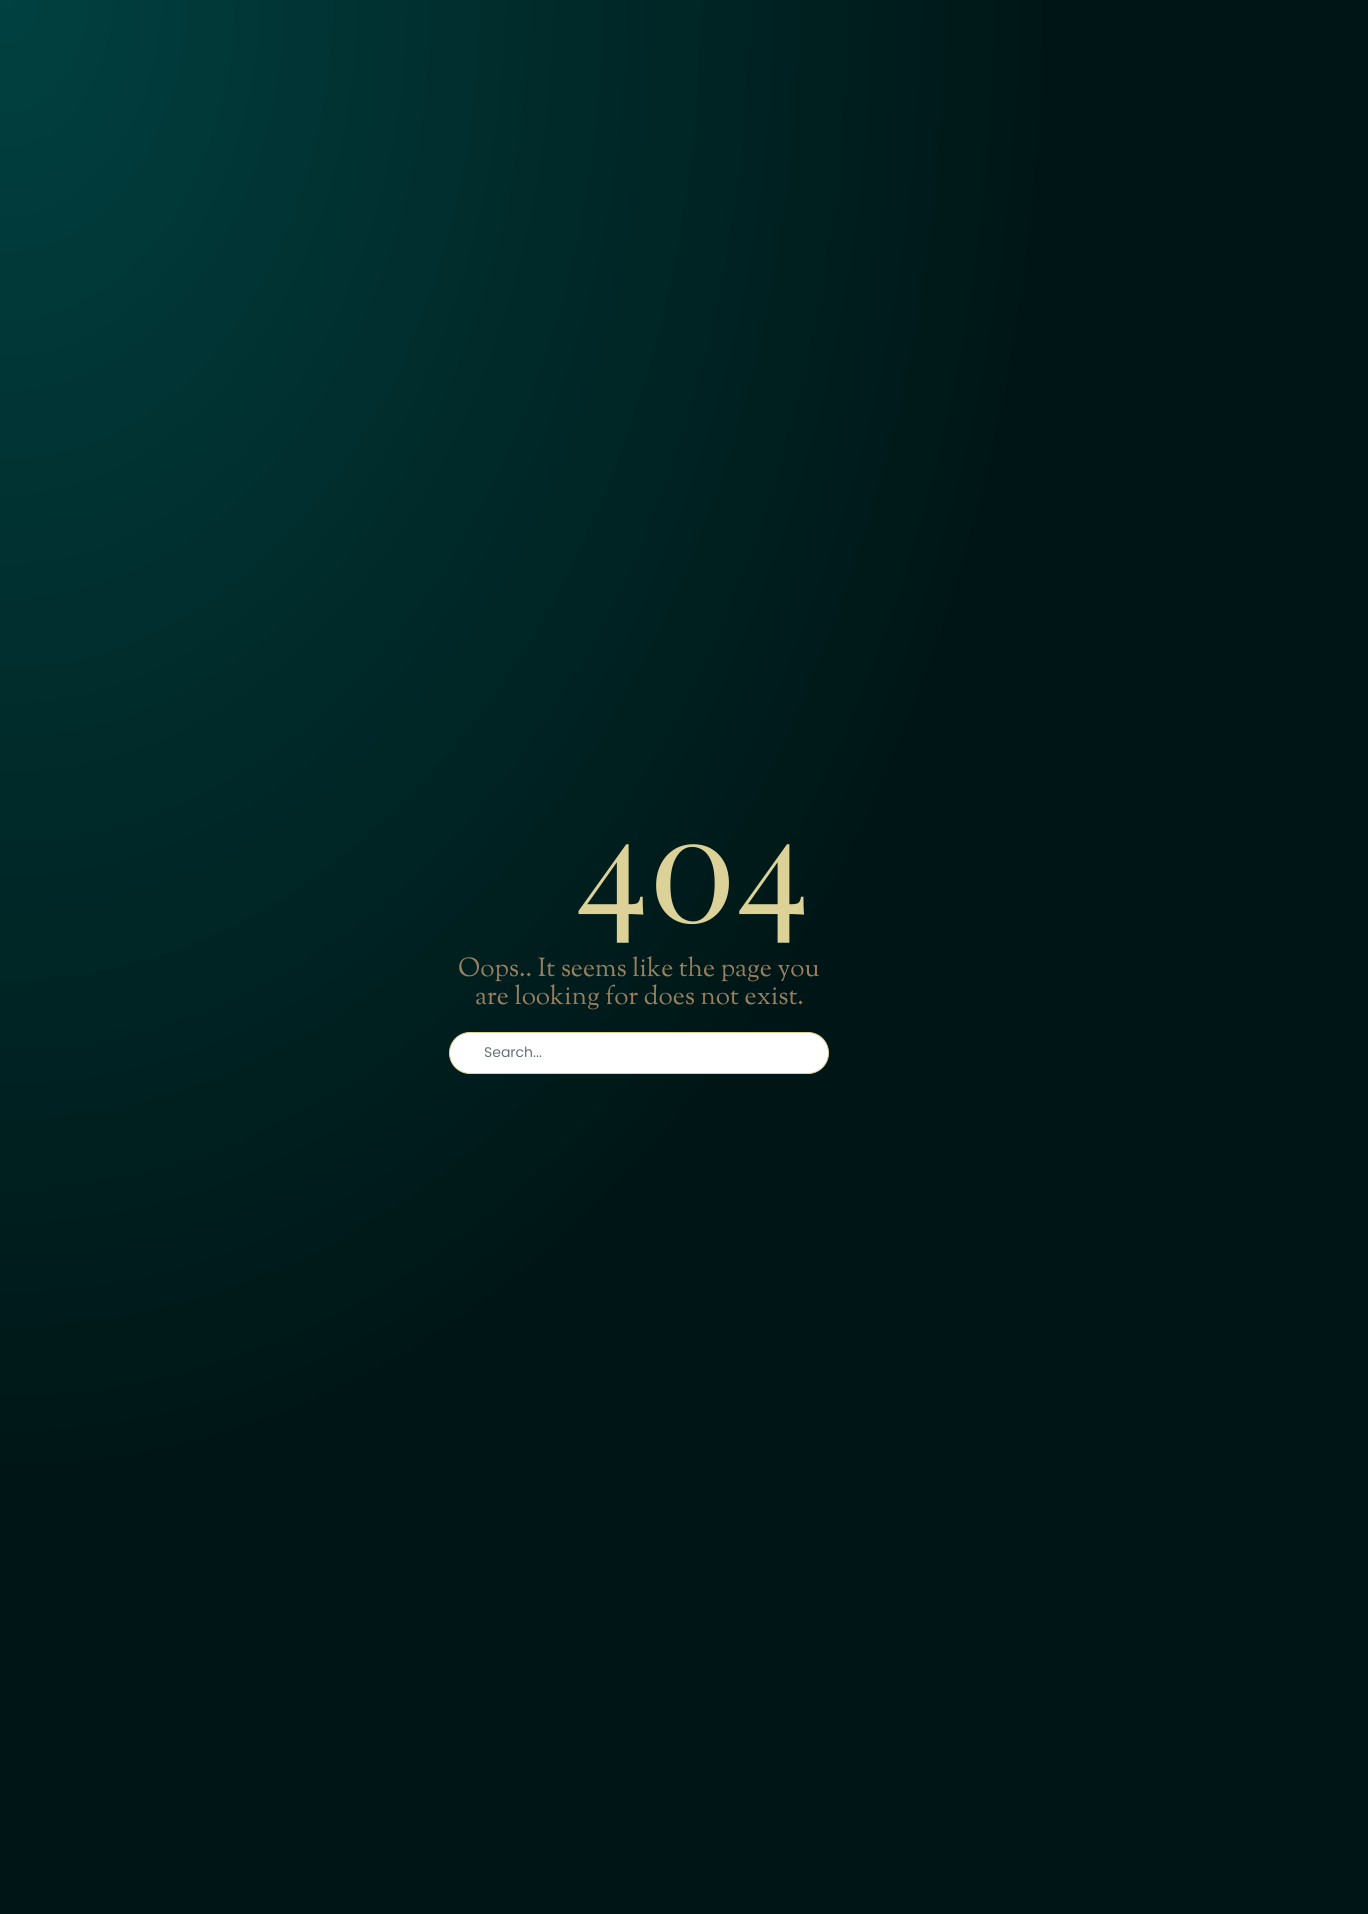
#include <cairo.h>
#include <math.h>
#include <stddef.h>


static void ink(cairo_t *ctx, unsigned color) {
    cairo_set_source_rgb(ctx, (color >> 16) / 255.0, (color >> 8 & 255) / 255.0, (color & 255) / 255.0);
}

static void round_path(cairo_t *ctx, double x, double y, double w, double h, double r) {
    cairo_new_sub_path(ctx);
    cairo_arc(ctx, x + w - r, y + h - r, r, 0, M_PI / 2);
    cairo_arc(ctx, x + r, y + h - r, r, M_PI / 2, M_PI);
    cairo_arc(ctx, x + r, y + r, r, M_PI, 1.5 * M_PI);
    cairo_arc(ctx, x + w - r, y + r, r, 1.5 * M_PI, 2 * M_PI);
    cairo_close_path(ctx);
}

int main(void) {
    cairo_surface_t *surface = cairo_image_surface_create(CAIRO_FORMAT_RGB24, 1368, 1914);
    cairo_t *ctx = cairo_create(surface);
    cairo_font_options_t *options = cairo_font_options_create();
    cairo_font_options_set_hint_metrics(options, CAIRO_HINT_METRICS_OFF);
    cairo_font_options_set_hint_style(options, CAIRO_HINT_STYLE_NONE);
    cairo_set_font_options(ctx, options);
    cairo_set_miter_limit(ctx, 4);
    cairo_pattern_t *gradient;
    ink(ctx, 0xFFFFFF);
    cairo_paint(ctx);
    gradient = cairo_pattern_create_radial(0, 0, 0, 0, 0, 1);
    cairo_pattern_set_matrix(gradient, &(cairo_matrix_t){1.0 / 1935, 0, 0, 1.0 / 2707, -1.0 * 0 / 1935, -1.0 * 0 / 2707});
    cairo_pattern_add_color_stop_rgba(gradient, 0, 0.004, 0.255, 0.255, 1);
    cairo_pattern_add_color_stop_rgba(gradient, 0.56, 0, 0.082, 0.082, 1);
    cairo_set_source(ctx, gradient);
    cairo_pattern_destroy(gradient);
    cairo_rectangle(ctx, 0, 0, 1368, 1914);
    cairo_fill(ctx);
    cairo_select_font_face(ctx, "Playfair Display", CAIRO_FONT_SLANT_NORMAL, CAIRO_FONT_WEIGHT_NORMAL);
    cairo_set_font_size(ctx, 147);
    ink(ctx, 0xDCD297);
    cairo_move_to(ctx, 576, 922);
    cairo_show_text(ctx, "404");
    cairo_select_font_face(ctx, "Sorts Mill Goudy", CAIRO_FONT_SLANT_NORMAL, CAIRO_FONT_WEIGHT_NORMAL);
    cairo_set_font_size(ctx, 26);
    ink(ctx, 0x9A7F5E);
    cairo_move_to(ctx, 458, 976);
    cairo_show_text(ctx, "Oops.. It seems like the page you");
    cairo_move_to(ctx, 475, 1004);
    cairo_show_text(ctx, "are looking for does not exist.");
    ink(ctx, 0xFFFFFF);
    round_path(ctx, 449.5, 1032.5, 379, 41, 20.5);
    cairo_fill_preserve(ctx);
    ink(ctx, 0xDCD297);
    cairo_set_line_width(ctx, 1);
    cairo_stroke(ctx);
    cairo_select_font_face(ctx, "Poppins", CAIRO_FONT_SLANT_NORMAL, CAIRO_FONT_WEIGHT_NORMAL);
    cairo_set_font_size(ctx, 14);
    ink(ctx, 0x667373);
    cairo_move_to(ctx, 484, 1057);
    cairo_show_text(ctx, "Search...");
    cairo_surface_write_to_png(surface, "image.png");
    cairo_font_options_destroy(options);
    cairo_destroy(ctx);
    cairo_surface_destroy(surface);
    return 0;
}
